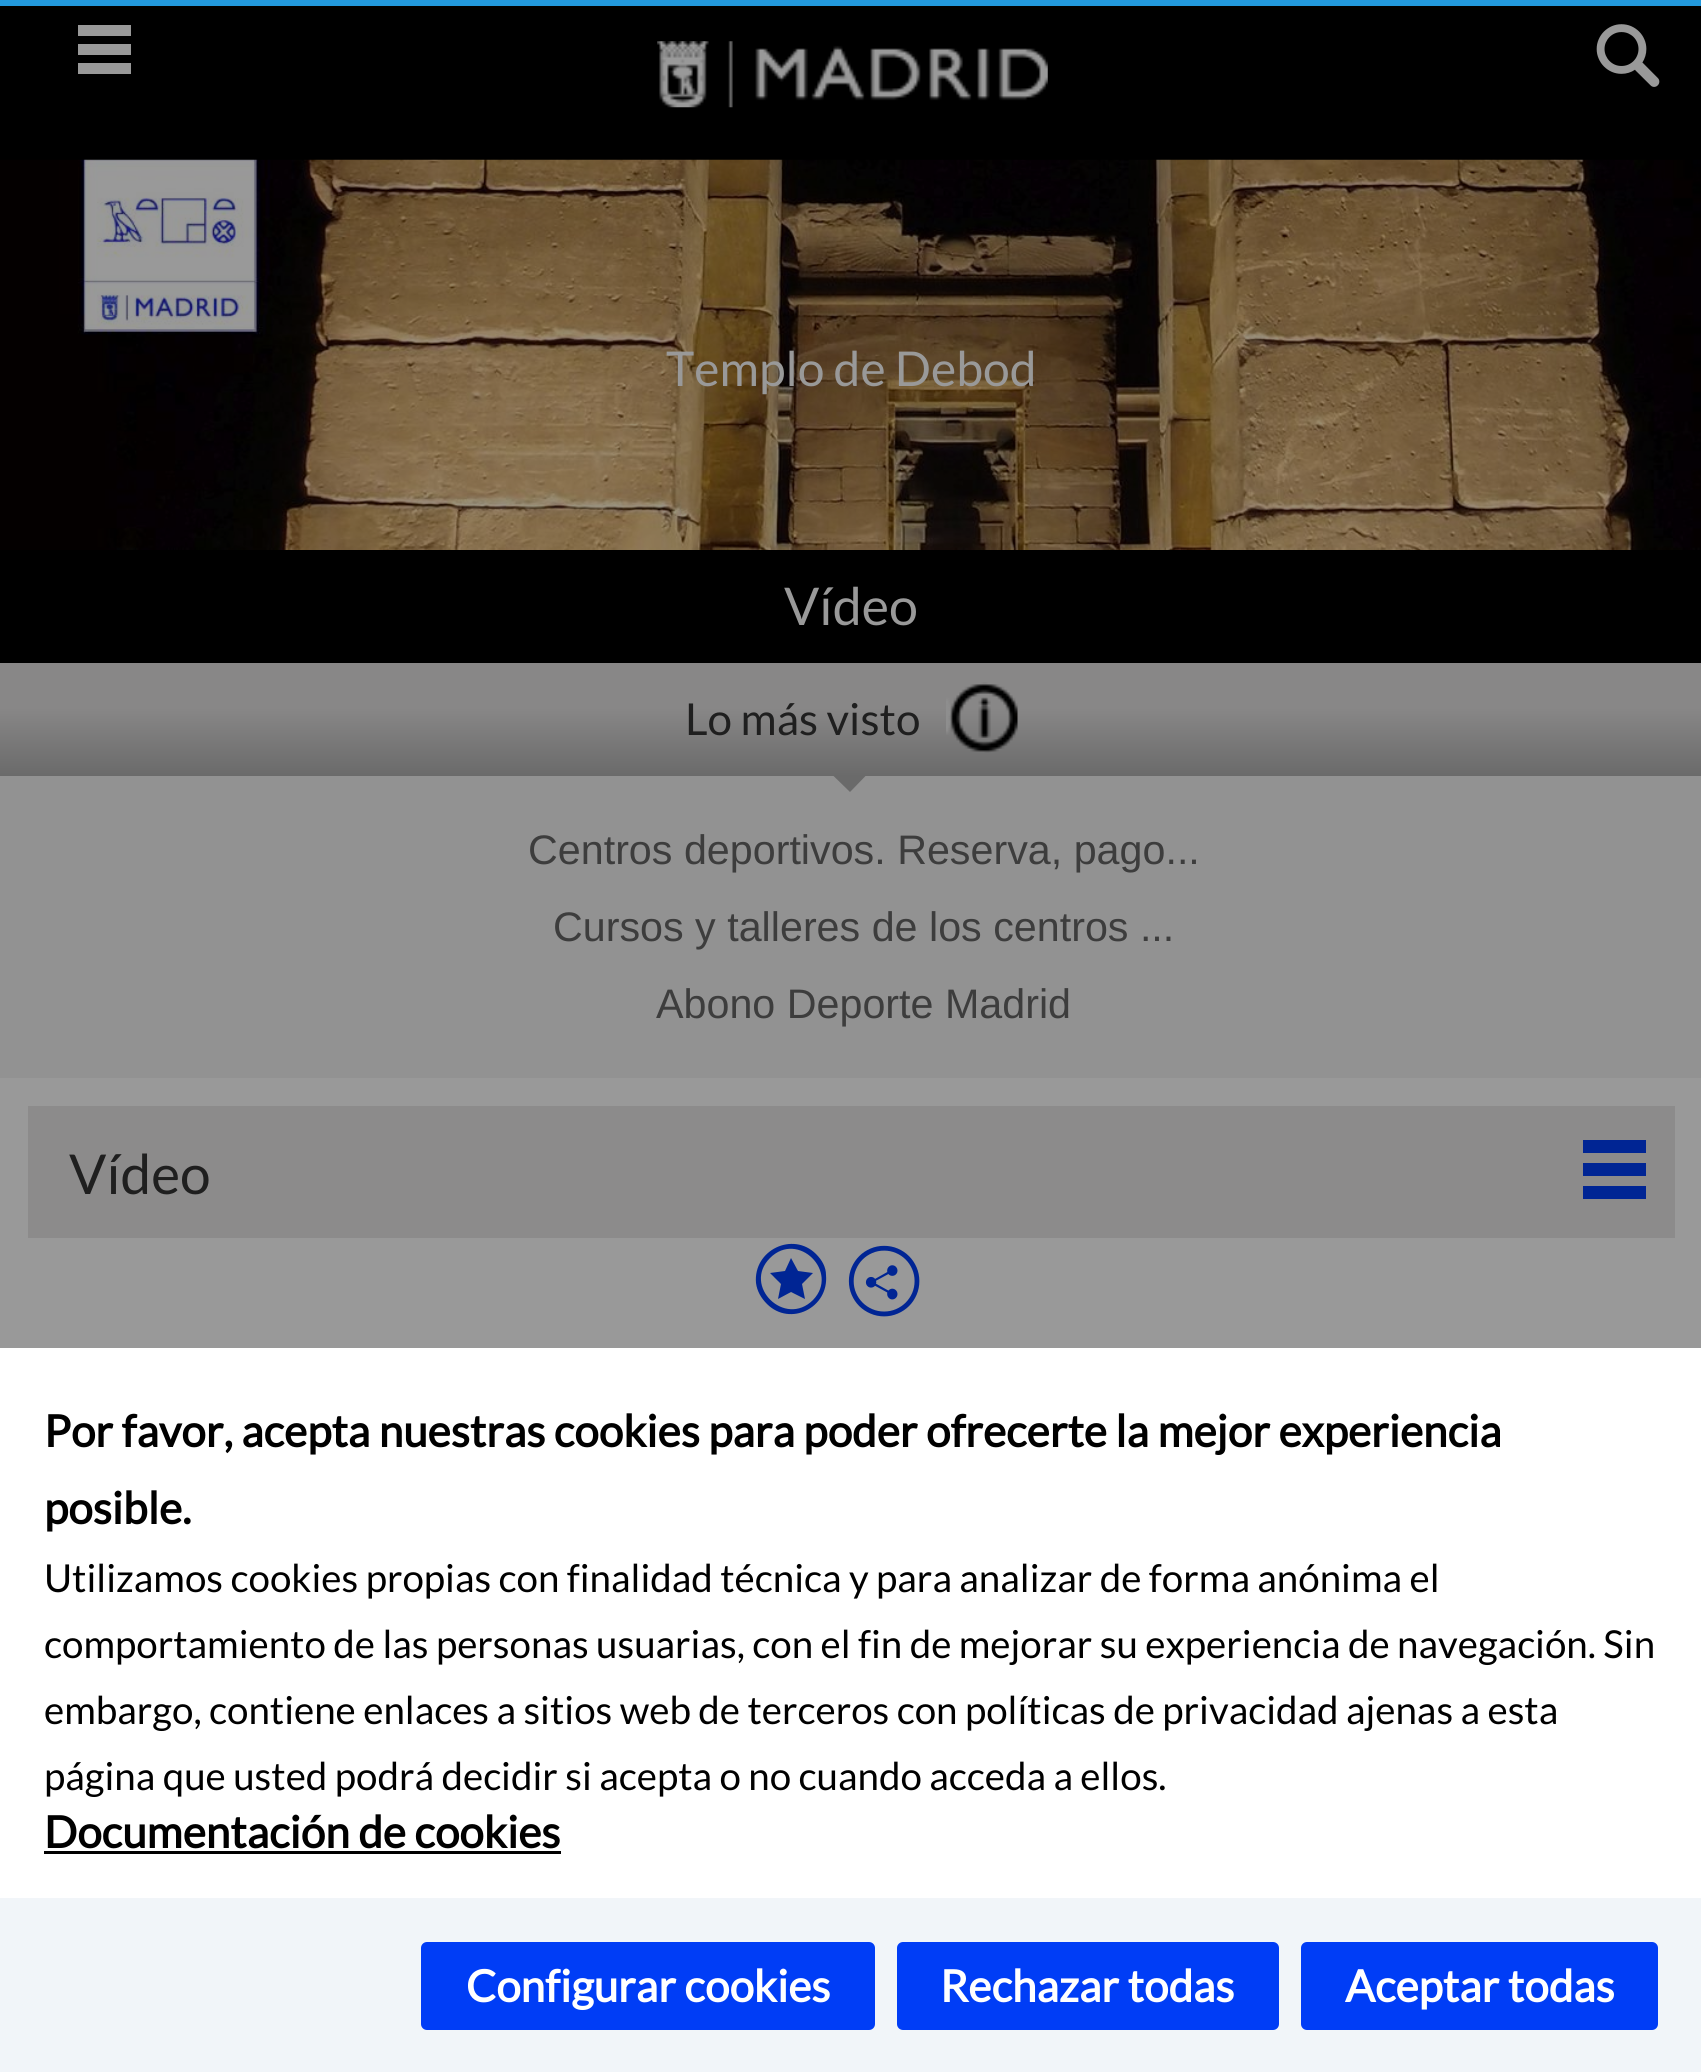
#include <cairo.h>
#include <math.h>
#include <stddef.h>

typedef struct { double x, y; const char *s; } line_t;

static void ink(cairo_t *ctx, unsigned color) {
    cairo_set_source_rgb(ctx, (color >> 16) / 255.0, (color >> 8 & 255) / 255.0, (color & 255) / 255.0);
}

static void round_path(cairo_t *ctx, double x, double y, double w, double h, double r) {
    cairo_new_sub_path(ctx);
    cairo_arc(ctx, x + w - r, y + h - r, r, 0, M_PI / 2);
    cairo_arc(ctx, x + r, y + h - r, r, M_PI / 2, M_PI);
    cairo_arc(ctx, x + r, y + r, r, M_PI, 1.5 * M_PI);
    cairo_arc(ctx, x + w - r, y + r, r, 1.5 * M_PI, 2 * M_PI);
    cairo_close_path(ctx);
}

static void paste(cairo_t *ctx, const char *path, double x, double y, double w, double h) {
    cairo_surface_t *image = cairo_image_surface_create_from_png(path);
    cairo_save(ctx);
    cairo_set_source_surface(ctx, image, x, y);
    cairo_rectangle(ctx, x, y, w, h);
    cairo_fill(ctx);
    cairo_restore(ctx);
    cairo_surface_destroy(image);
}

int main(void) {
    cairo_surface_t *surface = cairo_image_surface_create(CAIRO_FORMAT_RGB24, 1701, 2072);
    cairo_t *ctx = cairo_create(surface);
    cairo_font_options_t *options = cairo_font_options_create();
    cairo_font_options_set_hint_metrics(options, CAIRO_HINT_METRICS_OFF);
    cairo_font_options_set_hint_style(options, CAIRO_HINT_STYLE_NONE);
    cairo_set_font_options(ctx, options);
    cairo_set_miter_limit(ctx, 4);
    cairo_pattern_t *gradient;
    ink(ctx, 0x999999);
    cairo_paint(ctx);
    ink(ctx, 0x2299DD);
    cairo_rectangle(ctx, 0, 0, 1701, 6);
    cairo_fill(ctx);
    ink(ctx, 0x000000);
    cairo_rectangle(ctx, 0, 6, 1701, 154);
    cairo_fill(ctx);
    ink(ctx, 0x999999);
    cairo_new_path(ctx);
    cairo_move_to(ctx, 78, 25);
    cairo_line_to(ctx, 78, 36);
    cairo_line_to(ctx, 131, 36);
    cairo_line_to(ctx, 131, 25);
    cairo_close_path(ctx);
    cairo_move_to(ctx, 78, 55);
    cairo_line_to(ctx, 131, 55);
    cairo_line_to(ctx, 131, 44);
    cairo_line_to(ctx, 78, 44);
    cairo_close_path(ctx);
    cairo_move_to(ctx, 78, 74);
    cairo_line_to(ctx, 131, 74);
    cairo_line_to(ctx, 131, 63);
    cairo_line_to(ctx, 78, 63);
    cairo_close_path(ctx);
    cairo_fill(ctx);
    paste(ctx, "media/1.png", 657, 41, 391, 67);
    paste(ctx, "media/2.png", 1596, 24, 64, 63);
    paste(ctx, "media/3.png", 0, 159, 1701, 391);
    cairo_select_font_face(ctx, "Lato", CAIRO_FONT_SLANT_NORMAL, CAIRO_FONT_WEIGHT_NORMAL);
    cairo_set_font_size(ctx, 48);
    cairo_move_to(ctx, 666, 386);
    cairo_show_text(ctx, "Templo de Debod");
    ink(ctx, 0x000000);
    cairo_rectangle(ctx, 0, 550, 1701, 113);
    cairo_fill(ctx);
    cairo_set_font_size(ctx, 52);
    ink(ctx, 0x999999);
    cairo_move_to(ctx, 784, 625);
    cairo_show_text(ctx, "Vídeo");
    ink(ctx, 0x929292);
    cairo_rectangle(ctx, 0, 776, 1701, 302);
    cairo_fill(ctx);
    gradient = cairo_pattern_create_linear(851, 663, 851, 776);
    cairo_pattern_add_color_stop_rgba(gradient, 0, 0.533, 0.529, 0.529, 1);
    cairo_pattern_add_color_stop_rgba(gradient, 0.4, 0.533, 0.529, 0.529, 1);
    cairo_pattern_add_color_stop_rgba(gradient, 1, 0.416, 0.416, 0.416, 1);
    cairo_set_source(ctx, gradient);
    cairo_pattern_destroy(gradient);
    cairo_rectangle(ctx, 0, 663, 1701, 113);
    cairo_fill(ctx);
    cairo_set_font_size(ctx, 44);
    ink(ctx, 0x1F1F1F);
    cairo_move_to(ctx, 685, 735);
    cairo_show_text(ctx, "Lo más visto");
    paste(ctx, "media/4.png", 946, 682, 72, 71);
    ink(ctx, 0x6A6A6A);
    cairo_new_path(ctx);
    cairo_move_to(ctx, 833, 775.5);
    cairo_line_to(ctx, 866, 775.5);
    cairo_line_to(ctx, 850, 792);
    cairo_close_path(ctx);
    cairo_fill(ctx);
    cairo_select_font_face(ctx, "Liberation Sans", CAIRO_FONT_SLANT_NORMAL, CAIRO_FONT_WEIGHT_NORMAL);
    cairo_set_font_size(ctx, 41.25);
    ink(ctx, 0x3D3D3D);
    {
        static const line_t items[] = {
            {528, 864, "Centros deportivos. Reserva, pago..."},
            {553, 941, "Cursos y talleres de los centros ..."},
            {656, 1018, "Abono Deporte Madrid"},
        };
        for (size_t i = 0; i < sizeof items / sizeof *items; i++) {
            cairo_move_to(ctx, items[i].x, items[i].y);
            cairo_show_text(ctx, items[i].s);
        }
    }
    ink(ctx, 0x8C8B8B);
    cairo_rectangle(ctx, 28, 1106, 1647, 132);
    cairo_fill(ctx);
    cairo_select_font_face(ctx, "Lato", CAIRO_FONT_SLANT_NORMAL, CAIRO_FONT_WEIGHT_NORMAL);
    cairo_set_font_size(ctx, 55);
    ink(ctx, 0x1F1F1F);
    cairo_move_to(ctx, 69, 1194);
    cairo_show_text(ctx, "Vídeo");
    ink(ctx, 0x002594);
    cairo_new_path(ctx);
    cairo_move_to(ctx, 1583, 1140);
    cairo_line_to(ctx, 1583, 1153);
    cairo_line_to(ctx, 1646, 1153);
    cairo_line_to(ctx, 1646, 1140);
    cairo_close_path(ctx);
    cairo_move_to(ctx, 1583, 1176);
    cairo_line_to(ctx, 1646, 1176);
    cairo_line_to(ctx, 1646, 1163);
    cairo_line_to(ctx, 1583, 1163);
    cairo_close_path(ctx);
    cairo_move_to(ctx, 1583, 1199);
    cairo_line_to(ctx, 1646, 1199);
    cairo_line_to(ctx, 1646, 1186);
    cairo_line_to(ctx, 1583, 1186);
    cairo_close_path(ctx);
    cairo_fill(ctx);
    cairo_new_path(ctx);
    cairo_move_to(ctx, 770, 1258);
    cairo_curve_to(ctx, 798, 1230, 840, 1272, 813, 1300);
    cairo_curve_to(ctx, 785, 1328, 742, 1286, 770, 1258);
    cairo_close_path(ctx);
    cairo_move_to(ctx, 816, 1254);
    cairo_curve_to(ctx, 793, 1231, 753, 1250, 756, 1283);
    cairo_curve_to(ctx, 757, 1291, 761, 1298, 767, 1304);
    cairo_curve_to(ctx, 790, 1327, 829, 1308, 826, 1275);
    cairo_curve_to(ctx, 826, 1267, 822, 1260, 816, 1254);
    cairo_close_path(ctx);
    cairo_move_to(ctx, 791, 1258);
    cairo_line_to(ctx, 798, 1271);
    cairo_line_to(ctx, 813, 1273);
    cairo_line_to(ctx, 802, 1284);
    cairo_line_to(ctx, 805, 1299);
    cairo_line_to(ctx, 791, 1292);
    cairo_line_to(ctx, 778, 1299);
    cairo_line_to(ctx, 781, 1284);
    cairo_line_to(ctx, 770, 1273);
    cairo_line_to(ctx, 785, 1271);
    cairo_close_path(ctx);
    cairo_fill(ctx);
    paste(ctx, "media/5.png", 848, 1245, 72, 72);
    ink(ctx, 0xFFFFFF);
    cairo_rectangle(ctx, 0, 1348, 1701, 550);
    cairo_fill(ctx);
    cairo_select_font_face(ctx, "Lato", CAIRO_FONT_SLANT_NORMAL, CAIRO_FONT_WEIGHT_BOLD);
    cairo_set_font_size(ctx, 44);
    ink(ctx, 0x000000);
    cairo_move_to(ctx, 44, 1447);
    cairo_show_text(ctx, "Por favor, acepta nuestras cookies para poder ofrecerte la mejor experiencia");
    cairo_move_to(ctx, 44, 1524);
    cairo_show_text(ctx, "posible.");
    cairo_select_font_face(ctx, "Lato", CAIRO_FONT_SLANT_NORMAL, CAIRO_FONT_WEIGHT_NORMAL);
    cairo_set_font_size(ctx, 38.5);
    {
        static const line_t items[] = {
            {44, 1592, "Utilizamos cookies propias con finalidad técnica y para analizar de forma anónima el"},
            {44, 1658, "comportamiento de las personas usuarias, con el fin de mejorar su experiencia de navegación. Sin"},
            {44, 1724, "embargo, contiene enlaces a sitios web de terceros con políticas de privacidad ajenas a esta"},
            {44, 1790, "página que usted podrá decidir si acepta o no cuando acceda a ellos."},
        };
        for (size_t i = 0; i < sizeof items / sizeof *items; i++) {
            cairo_move_to(ctx, items[i].x, items[i].y);
            cairo_show_text(ctx, items[i].s);
        }
    }
    cairo_select_font_face(ctx, "Lato", CAIRO_FONT_SLANT_NORMAL, CAIRO_FONT_WEIGHT_BOLD);
    cairo_set_font_size(ctx, 44);
    cairo_move_to(ctx, 44, 1848);
    cairo_show_text(ctx, "Documentación de cookies");
    cairo_rectangle(ctx, 44, 1851, 517, 3);
    cairo_fill(ctx);
    ink(ctx, 0xF1F5F9);
    cairo_rectangle(ctx, 0, 1898, 1701, 174);
    cairo_fill(ctx);
    ink(ctx, 0x003DF6);
    round_path(ctx, 421, 1942, 454, 88, 6);
    cairo_fill(ctx);
    ink(ctx, 0xFFFFFF);
    cairo_move_to(ctx, 466, 2002);
    cairo_show_text(ctx, "Configurar cookies");
    ink(ctx, 0x003DF6);
    round_path(ctx, 897, 1942, 382, 88, 6);
    cairo_fill(ctx);
    ink(ctx, 0xFFFFFF);
    cairo_move_to(ctx, 940, 2002);
    cairo_show_text(ctx, "Rechazar todas");
    ink(ctx, 0x003DF6);
    round_path(ctx, 1301, 1942, 357, 88, 6);
    cairo_fill(ctx);
    ink(ctx, 0xFFFFFF);
    cairo_move_to(ctx, 1345, 2002);
    cairo_show_text(ctx, "Aceptar todas");
    cairo_surface_write_to_png(surface, "image.png");
    cairo_font_options_destroy(options);
    cairo_destroy(ctx);
    cairo_surface_destroy(surface);
    return 0;
}
